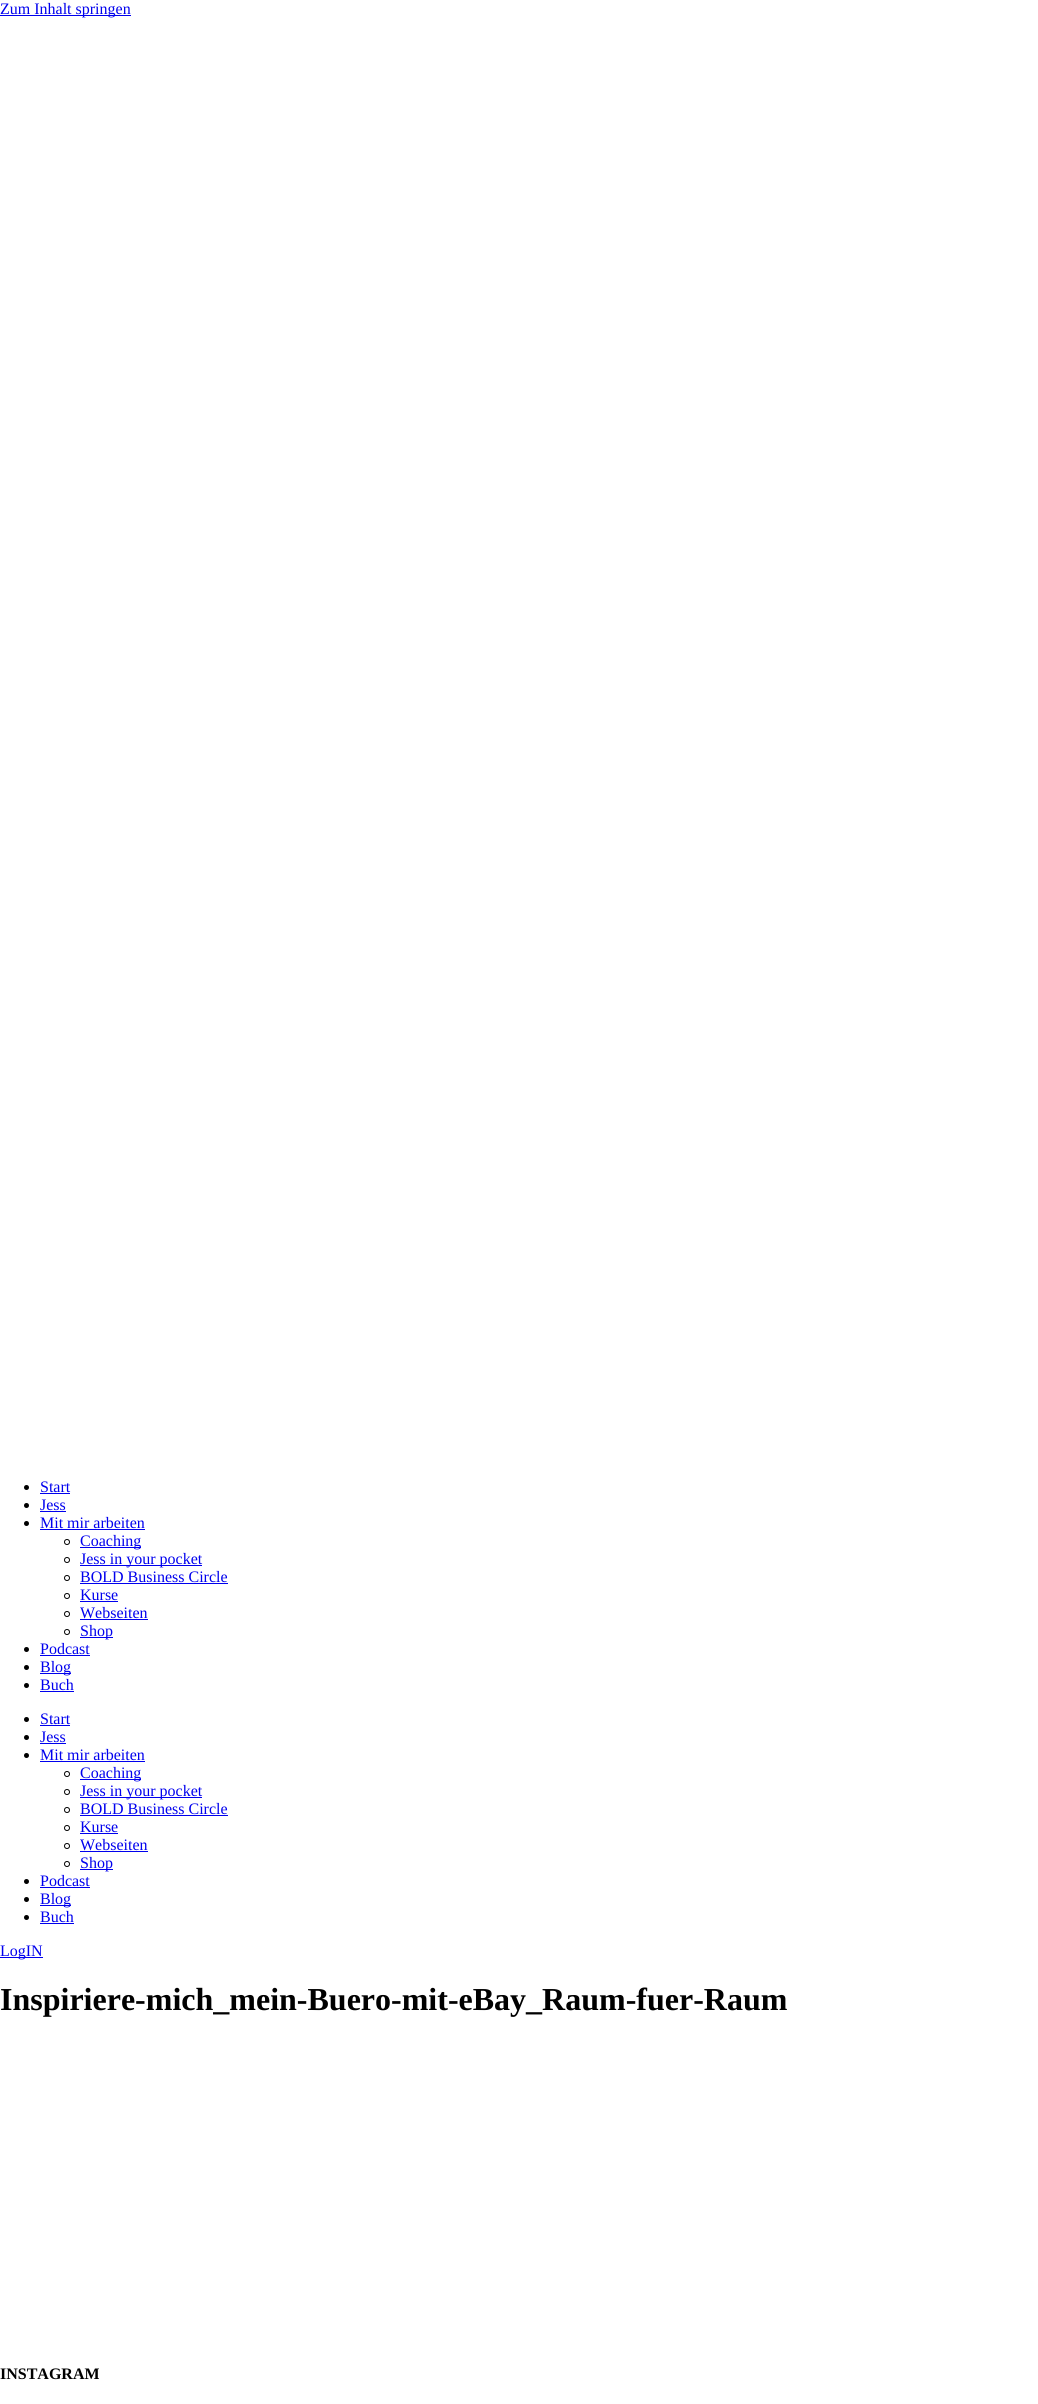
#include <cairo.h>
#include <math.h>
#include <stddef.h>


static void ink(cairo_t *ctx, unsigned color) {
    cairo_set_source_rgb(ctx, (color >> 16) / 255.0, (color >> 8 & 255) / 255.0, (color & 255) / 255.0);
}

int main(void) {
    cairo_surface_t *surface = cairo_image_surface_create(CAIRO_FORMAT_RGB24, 1038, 2404);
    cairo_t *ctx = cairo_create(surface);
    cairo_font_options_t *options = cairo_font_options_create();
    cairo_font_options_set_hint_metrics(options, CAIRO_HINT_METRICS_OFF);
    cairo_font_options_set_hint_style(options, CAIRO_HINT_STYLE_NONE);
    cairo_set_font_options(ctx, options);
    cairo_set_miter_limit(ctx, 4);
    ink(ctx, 0xFFFFFF);
    cairo_paint(ctx);
    ink(ctx, 0x0000EE);
    cairo_rectangle(ctx, 0, 15, 131, 1);
    cairo_fill(ctx);
    cairo_select_font_face(ctx, "Liberation Serif", CAIRO_FONT_SLANT_NORMAL, CAIRO_FONT_WEIGHT_NORMAL);
    cairo_set_font_size(ctx, 16);
    cairo_move_to(ctx, 0, 14);
    cairo_show_text(ctx, "Zum Inhalt springen");
    ink(ctx, 0x000000);
    cairo_new_path(ctx);
    cairo_arc(ctx, 26.5, 1487.5, 2.5, 0, 2 * M_PI);
    cairo_fill(ctx);
    ink(ctx, 0x0000EE);
    cairo_move_to(ctx, 40, 1492);
    cairo_show_text(ctx, "Start");
    cairo_rectangle(ctx, 40, 1493, 30, 1);
    cairo_fill(ctx);
    ink(ctx, 0x000000);
    cairo_arc(ctx, 26.5, 1505.5, 2.5, 0, 2 * M_PI);
    cairo_fill(ctx);
    ink(ctx, 0x0000EE);
    cairo_move_to(ctx, 40, 1510);
    cairo_show_text(ctx, "Jess");
    cairo_rectangle(ctx, 40, 1511, 26, 1);
    cairo_fill(ctx);
    ink(ctx, 0x000000);
    cairo_arc(ctx, 26.5, 1523.5, 2.5, 0, 2 * M_PI);
    cairo_fill(ctx);
    ink(ctx, 0x0000EE);
    cairo_move_to(ctx, 40, 1528);
    cairo_show_text(ctx, "Mit mir arbeiten");
    cairo_rectangle(ctx, 40, 1529, 105, 1);
    cairo_fill(ctx);
    cairo_arc(ctx, 67, 1542, 2.5, 0, 2 * M_PI);
    ink(ctx, 0x000000);
    cairo_set_line_width(ctx, 1);
    cairo_stroke(ctx);
    ink(ctx, 0x0000EE);
    cairo_rectangle(ctx, 80, 1547, 61, 1);
    cairo_fill(ctx);
    cairo_move_to(ctx, 80, 1546);
    cairo_show_text(ctx, "Coaching");
    cairo_new_path(ctx);
    cairo_arc(ctx, 67, 1560, 2.5, 0, 2 * M_PI);
    ink(ctx, 0x000000);
    cairo_stroke(ctx);
    ink(ctx, 0x0000EE);
    cairo_rectangle(ctx, 80, 1565, 122, 1);
    cairo_fill(ctx);
    cairo_move_to(ctx, 80, 1564);
    cairo_show_text(ctx, "Jess in your pocket");
    cairo_new_path(ctx);
    cairo_arc(ctx, 67, 1578, 2.5, 0, 2 * M_PI);
    ink(ctx, 0x000000);
    cairo_stroke(ctx);
    ink(ctx, 0x0000EE);
    cairo_move_to(ctx, 80, 1582);
    cairo_show_text(ctx, "BOLD Business Circle");
    cairo_rectangle(ctx, 80, 1583, 148, 1);
    cairo_fill(ctx);
    cairo_arc(ctx, 67, 1596, 2.5, 0, 2 * M_PI);
    ink(ctx, 0x000000);
    cairo_stroke(ctx);
    ink(ctx, 0x0000EE);
    cairo_move_to(ctx, 80, 1600);
    cairo_show_text(ctx, "Kurse");
    cairo_rectangle(ctx, 80, 1601, 38, 1);
    cairo_fill(ctx);
    cairo_arc(ctx, 67, 1614, 2.5, 0, 2 * M_PI);
    ink(ctx, 0x000000);
    cairo_stroke(ctx);
    ink(ctx, 0x0000EE);
    cairo_move_to(ctx, 80, 1618);
    cairo_show_text(ctx, "Webseiten");
    cairo_rectangle(ctx, 80, 1619, 68, 1);
    cairo_fill(ctx);
    cairo_arc(ctx, 67, 1632, 2.5, 0, 2 * M_PI);
    ink(ctx, 0x000000);
    cairo_stroke(ctx);
    ink(ctx, 0x0000EE);
    cairo_rectangle(ctx, 80, 1637, 33, 1);
    cairo_fill(ctx);
    cairo_move_to(ctx, 80, 1636);
    cairo_show_text(ctx, "Shop");
    ink(ctx, 0x000000);
    cairo_new_path(ctx);
    cairo_arc(ctx, 26.5, 1649.5, 2.5, 0, 2 * M_PI);
    cairo_fill(ctx);
    ink(ctx, 0x0000EE);
    cairo_move_to(ctx, 40, 1654);
    cairo_show_text(ctx, "Podcast");
    cairo_rectangle(ctx, 40, 1655, 50, 1);
    cairo_fill(ctx);
    ink(ctx, 0x000000);
    cairo_arc(ctx, 26.5, 1667.5, 2.5, 0, 2 * M_PI);
    cairo_fill(ctx);
    ink(ctx, 0x0000EE);
    cairo_rectangle(ctx, 40, 1673, 31, 1);
    cairo_fill(ctx);
    cairo_move_to(ctx, 40, 1672);
    cairo_show_text(ctx, "Blog");
    ink(ctx, 0x000000);
    cairo_new_path(ctx);
    cairo_arc(ctx, 26.5, 1685.5, 2.5, 0, 2 * M_PI);
    cairo_fill(ctx);
    ink(ctx, 0x0000EE);
    cairo_move_to(ctx, 40, 1690);
    cairo_show_text(ctx, "Buch");
    cairo_rectangle(ctx, 40, 1691, 34, 1);
    cairo_fill(ctx);
    ink(ctx, 0x000000);
    cairo_arc(ctx, 26.5, 1719.5, 2.5, 0, 2 * M_PI);
    cairo_fill(ctx);
    ink(ctx, 0x0000EE);
    cairo_move_to(ctx, 40, 1724);
    cairo_show_text(ctx, "Start");
    cairo_rectangle(ctx, 40, 1725, 30, 1);
    cairo_fill(ctx);
    ink(ctx, 0x000000);
    cairo_arc(ctx, 26.5, 1737.5, 2.5, 0, 2 * M_PI);
    cairo_fill(ctx);
    ink(ctx, 0x0000EE);
    cairo_move_to(ctx, 40, 1742);
    cairo_show_text(ctx, "Jess");
    cairo_rectangle(ctx, 40, 1743, 26, 1);
    cairo_fill(ctx);
    ink(ctx, 0x000000);
    cairo_arc(ctx, 26.5, 1755.5, 2.5, 0, 2 * M_PI);
    cairo_fill(ctx);
    ink(ctx, 0x0000EE);
    cairo_move_to(ctx, 40, 1760);
    cairo_show_text(ctx, "Mit mir arbeiten");
    cairo_rectangle(ctx, 40, 1761, 105, 1);
    cairo_fill(ctx);
    cairo_arc(ctx, 67, 1774, 2.5, 0, 2 * M_PI);
    ink(ctx, 0x000000);
    cairo_stroke(ctx);
    ink(ctx, 0x0000EE);
    cairo_rectangle(ctx, 80, 1779, 61, 1);
    cairo_fill(ctx);
    cairo_move_to(ctx, 80, 1778);
    cairo_show_text(ctx, "Coaching");
    cairo_new_path(ctx);
    cairo_arc(ctx, 67, 1792, 2.5, 0, 2 * M_PI);
    ink(ctx, 0x000000);
    cairo_stroke(ctx);
    ink(ctx, 0x0000EE);
    cairo_rectangle(ctx, 80, 1797, 122, 1);
    cairo_fill(ctx);
    cairo_move_to(ctx, 80, 1796);
    cairo_show_text(ctx, "Jess in your pocket");
    cairo_new_path(ctx);
    cairo_arc(ctx, 67, 1810, 2.5, 0, 2 * M_PI);
    ink(ctx, 0x000000);
    cairo_stroke(ctx);
    ink(ctx, 0x0000EE);
    cairo_move_to(ctx, 80, 1814);
    cairo_show_text(ctx, "BOLD Business Circle");
    cairo_rectangle(ctx, 80, 1815, 148, 1);
    cairo_fill(ctx);
    cairo_arc(ctx, 67, 1828, 2.5, 0, 2 * M_PI);
    ink(ctx, 0x000000);
    cairo_stroke(ctx);
    ink(ctx, 0x0000EE);
    cairo_move_to(ctx, 80, 1832);
    cairo_show_text(ctx, "Kurse");
    cairo_rectangle(ctx, 80, 1833, 38, 1);
    cairo_fill(ctx);
    cairo_arc(ctx, 67, 1846, 2.5, 0, 2 * M_PI);
    ink(ctx, 0x000000);
    cairo_stroke(ctx);
    ink(ctx, 0x0000EE);
    cairo_move_to(ctx, 80, 1850);
    cairo_show_text(ctx, "Webseiten");
    cairo_rectangle(ctx, 80, 1851, 68, 1);
    cairo_fill(ctx);
    cairo_arc(ctx, 67, 1864, 2.5, 0, 2 * M_PI);
    ink(ctx, 0x000000);
    cairo_stroke(ctx);
    ink(ctx, 0x0000EE);
    cairo_rectangle(ctx, 80, 1869, 33, 1);
    cairo_fill(ctx);
    cairo_move_to(ctx, 80, 1868);
    cairo_show_text(ctx, "Shop");
    ink(ctx, 0x000000);
    cairo_new_path(ctx);
    cairo_arc(ctx, 26.5, 1881.5, 2.5, 0, 2 * M_PI);
    cairo_fill(ctx);
    ink(ctx, 0x0000EE);
    cairo_move_to(ctx, 40, 1886);
    cairo_show_text(ctx, "Podcast");
    cairo_rectangle(ctx, 40, 1887, 50, 1);
    cairo_fill(ctx);
    ink(ctx, 0x000000);
    cairo_arc(ctx, 26.5, 1899.5, 2.5, 0, 2 * M_PI);
    cairo_fill(ctx);
    ink(ctx, 0x0000EE);
    cairo_rectangle(ctx, 40, 1905, 31, 1);
    cairo_fill(ctx);
    cairo_move_to(ctx, 40, 1904);
    cairo_show_text(ctx, "Blog");
    ink(ctx, 0x000000);
    cairo_new_path(ctx);
    cairo_arc(ctx, 26.5, 1917.5, 2.5, 0, 2 * M_PI);
    cairo_fill(ctx);
    ink(ctx, 0x0000EE);
    cairo_move_to(ctx, 40, 1922);
    cairo_show_text(ctx, "Buch");
    cairo_rectangle(ctx, 40, 1923, 34, 1);
    cairo_fill(ctx);
    cairo_rectangle(ctx, 0, 1957, 43, 1);
    cairo_fill(ctx);
    cairo_move_to(ctx, 0, 1956);
    cairo_show_text(ctx, "LogIN");
    cairo_select_font_face(ctx, "Liberation Serif", CAIRO_FONT_SLANT_NORMAL, CAIRO_FONT_WEIGHT_BOLD);
    cairo_set_font_size(ctx, 32);
    ink(ctx, 0x000000);
    cairo_move_to(ctx, 0, 2010);
    cairo_show_text(ctx, "Inspiriere-mich_mein-Buero-mit-eBay_Raum-fuer-Raum");
    cairo_set_font_size(ctx, 16);
    cairo_move_to(ctx, 0, 2379);
    cairo_show_text(ctx, "INSTAGRAM");
    cairo_surface_write_to_png(surface, "image.png");
    cairo_font_options_destroy(options);
    cairo_destroy(ctx);
    cairo_surface_destroy(surface);
    return 0;
}
